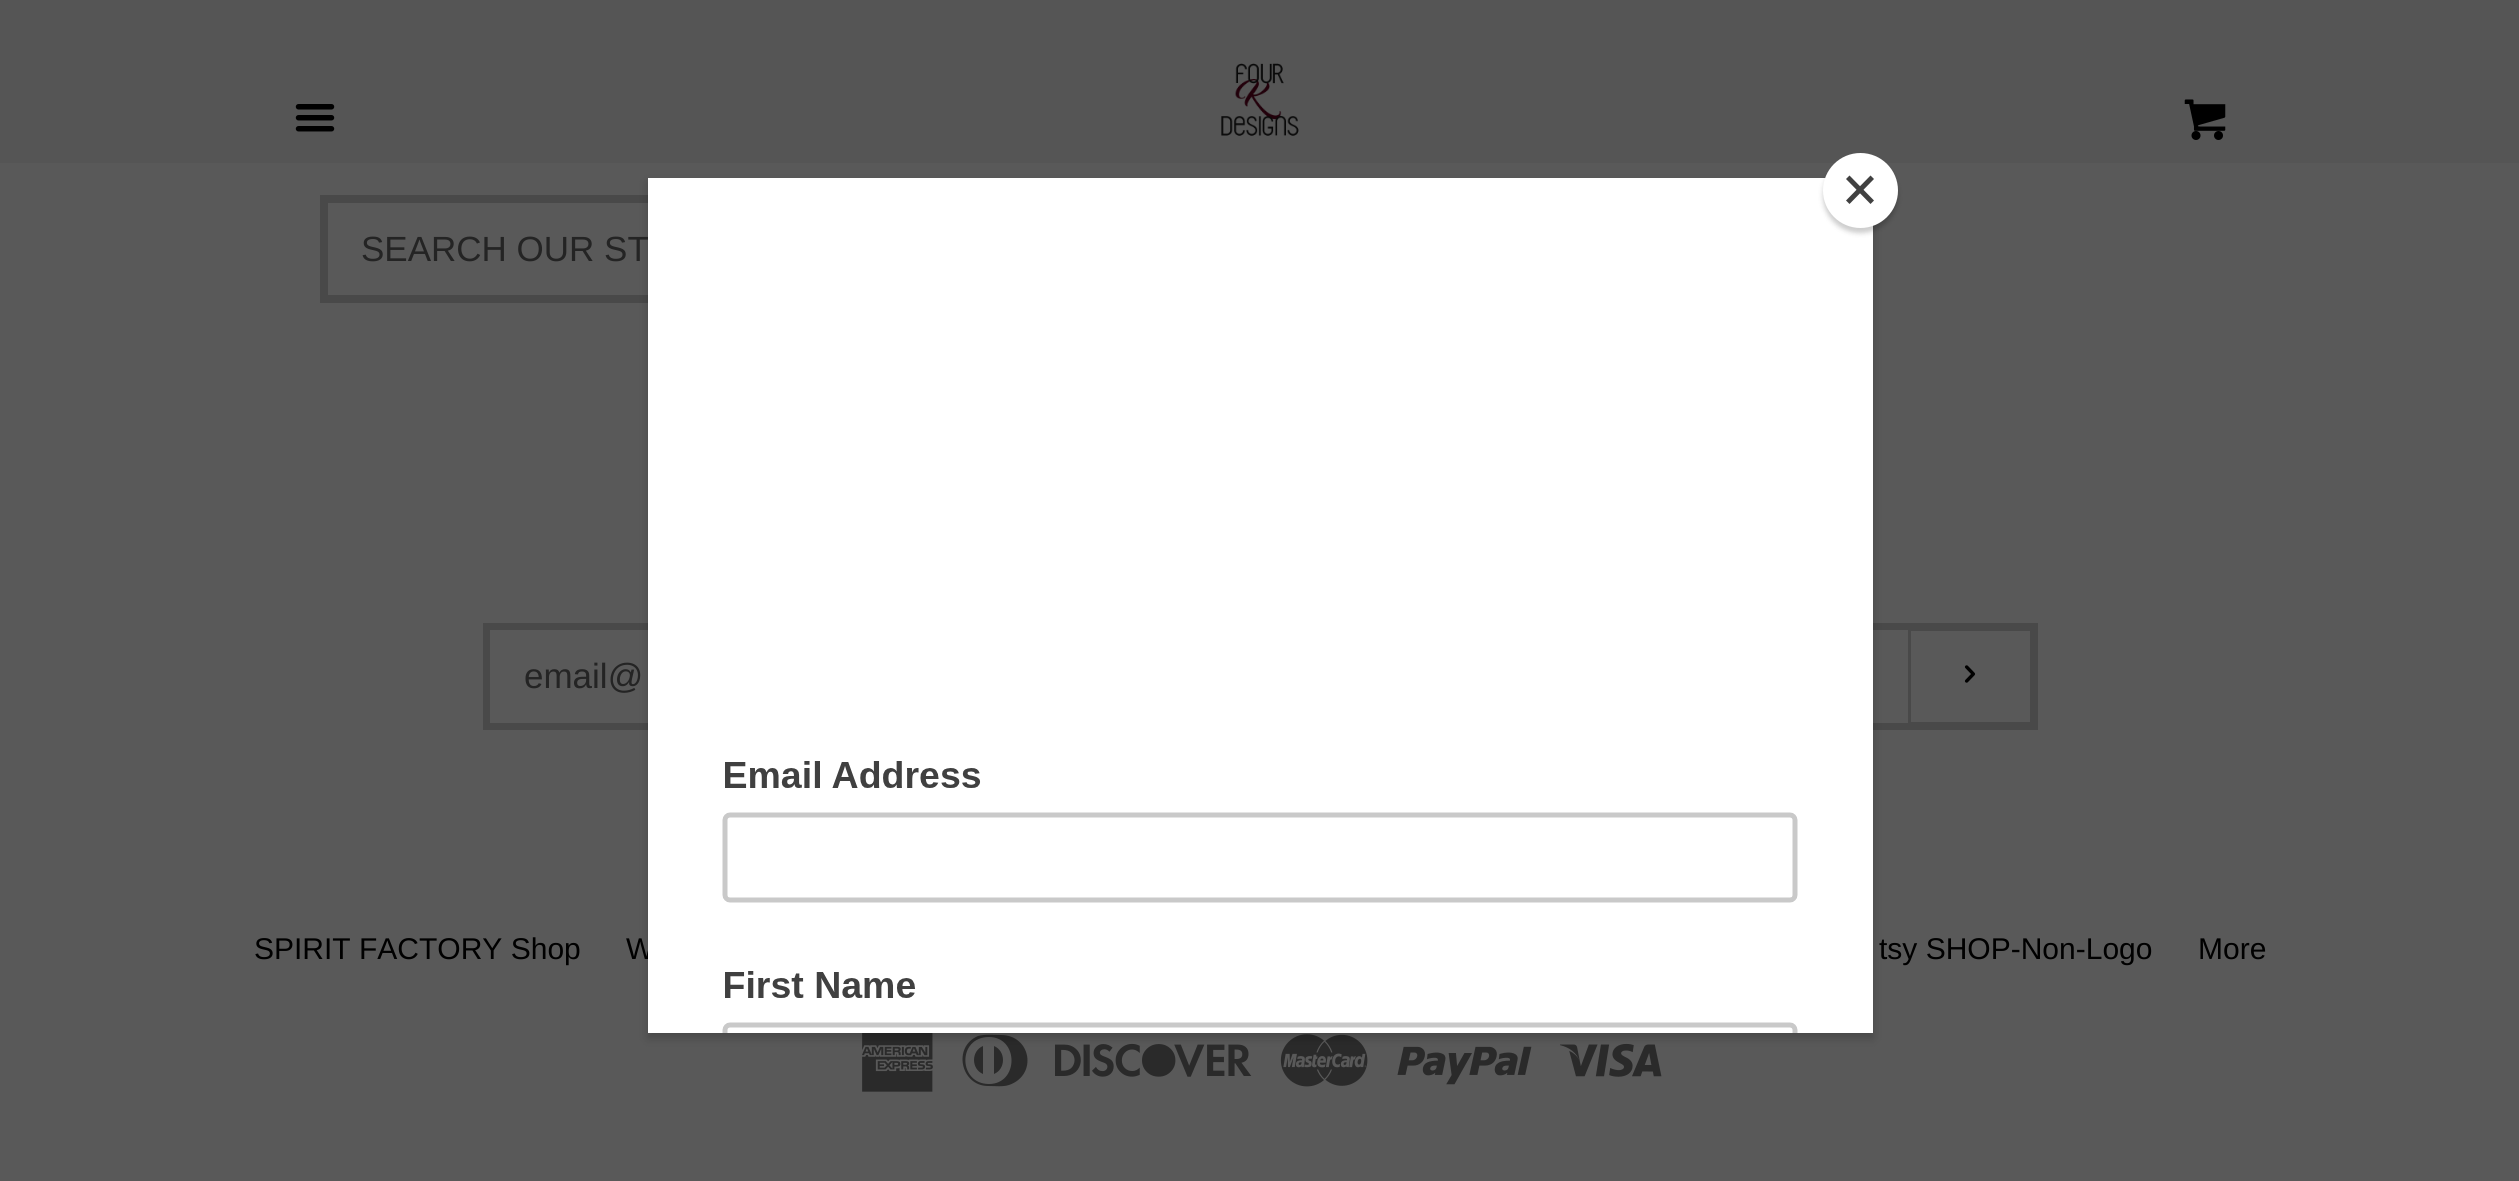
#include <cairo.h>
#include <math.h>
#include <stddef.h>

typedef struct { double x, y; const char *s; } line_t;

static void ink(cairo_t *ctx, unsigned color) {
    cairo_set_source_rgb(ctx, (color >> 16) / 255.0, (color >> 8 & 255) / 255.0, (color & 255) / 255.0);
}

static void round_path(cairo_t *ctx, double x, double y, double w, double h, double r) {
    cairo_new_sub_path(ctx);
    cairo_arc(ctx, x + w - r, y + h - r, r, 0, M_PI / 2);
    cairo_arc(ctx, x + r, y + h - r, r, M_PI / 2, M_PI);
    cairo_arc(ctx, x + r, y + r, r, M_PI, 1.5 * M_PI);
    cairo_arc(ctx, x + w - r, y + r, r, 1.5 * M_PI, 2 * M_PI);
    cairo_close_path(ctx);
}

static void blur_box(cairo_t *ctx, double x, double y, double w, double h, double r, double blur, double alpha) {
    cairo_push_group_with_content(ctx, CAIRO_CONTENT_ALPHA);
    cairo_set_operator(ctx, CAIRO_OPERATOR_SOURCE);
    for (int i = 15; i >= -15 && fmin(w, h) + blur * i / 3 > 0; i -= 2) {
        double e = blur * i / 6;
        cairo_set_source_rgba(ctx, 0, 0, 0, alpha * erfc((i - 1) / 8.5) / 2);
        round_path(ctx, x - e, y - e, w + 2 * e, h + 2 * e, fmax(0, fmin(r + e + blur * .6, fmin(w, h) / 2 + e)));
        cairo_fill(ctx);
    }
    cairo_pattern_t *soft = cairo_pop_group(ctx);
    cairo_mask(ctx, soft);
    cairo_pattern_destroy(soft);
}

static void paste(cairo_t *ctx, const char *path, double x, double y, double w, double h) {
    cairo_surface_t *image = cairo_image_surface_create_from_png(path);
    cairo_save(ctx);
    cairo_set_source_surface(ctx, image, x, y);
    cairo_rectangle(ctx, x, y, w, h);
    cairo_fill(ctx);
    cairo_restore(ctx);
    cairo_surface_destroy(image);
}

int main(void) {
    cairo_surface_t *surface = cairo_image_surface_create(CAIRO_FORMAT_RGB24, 2519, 1181);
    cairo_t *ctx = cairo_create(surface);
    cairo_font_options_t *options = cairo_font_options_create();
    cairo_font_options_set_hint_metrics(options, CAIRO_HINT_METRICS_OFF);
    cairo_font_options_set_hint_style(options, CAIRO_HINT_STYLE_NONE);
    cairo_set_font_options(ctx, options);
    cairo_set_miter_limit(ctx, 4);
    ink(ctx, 0x595959);
    cairo_paint(ctx);
    cairo_rectangle(ctx, 324, 199, 1042, 100);
    ink(ctx, 0x494949);
    cairo_set_line_width(ctx, 8);
    cairo_stroke(ctx);
    cairo_rectangle(ctx, 487, 627, 1547, 99);
    cairo_stroke(ctx);
    ink(ctx, 0x595959);
    cairo_rectangle(ctx, 490, 630, 1418, 93);
    cairo_fill(ctx);
    paste(ctx, "media/6.png", 862, 1033, 71, 59);
    ink(ctx, 0x2A2A2A);
    cairo_new_path(ctx);
    cairo_move_to(ctx, 1001, 1035);
    cairo_curve_to(ctx, 1031, 1035, 1038, 1075, 1009, 1085);
    cairo_curve_to(ctx, 1003, 1087, 995, 1086, 988, 1086);
    cairo_curve_to(ctx, 961, 1086, 952, 1047, 978, 1036);
    cairo_curve_to(ctx, 985, 1034, 993, 1035, 1001, 1035);
    cairo_close_path(ctx);
    cairo_move_to(ctx, 989, 1084);
    cairo_curve_to(ctx, 1019, 1084, 1019, 1037, 989, 1037);
    cairo_curve_to(ctx, 957, 1037, 958, 1084, 989, 1084);
    cairo_close_path(ctx);
    cairo_move_to(ctx, 983, 1074);
    cairo_curve_to(ctx, 971, 1069, 971, 1051, 983, 1046);
    cairo_close_path(ctx);
    cairo_move_to(ctx, 994, 1046);
    cairo_curve_to(ctx, 1006, 1051, 1006, 1069, 994, 1074);
    cairo_close_path(ctx);
    cairo_fill(ctx);
    paste(ctx, "media/7.png", 1055, 1043, 197, 34);
    paste(ctx, "media/8.png", 1280, 1034, 88, 53);
    paste(ctx, "media/9.png", 1397, 1046, 135, 39);
    paste(ctx, "media/10.png", 1560, 1043, 102, 34);
    ink(ctx, 0x000000);
    blur_box(ctx, 648, 183, 1225, 855, 0, 5, 0.2);
    cairo_select_font_face(ctx, "Liberation Sans", CAIRO_FONT_SLANT_NORMAL, CAIRO_FONT_WEIGHT_NORMAL);
    cairo_set_font_size(ctx, 35);
    ink(ctx, 0x242424);
    cairo_move_to(ctx, 361, 261);
    cairo_show_text(ctx, "SEARCH OUR ST");
    cairo_set_font_size(ctx, 30);
    ink(ctx, 0x000000);
    cairo_move_to(ctx, 626, 959);
    cairo_show_text(ctx, "W");
    paste(ctx, "media/1.png", 648, 178, 1225, 855);
    ink(ctx, 0x555555);
    cairo_rectangle(ctx, 0, 0, 2519, 163);
    cairo_fill(ctx);
    ink(ctx, 0x000000);
    blur_box(ctx, 1823, 158, 75, 75, 37.5, 2.5, 0.2);
    ink(ctx, 0xFFFFFF);
    cairo_arc(ctx, 1860.5, 190.5, 37.5, 0, 2 * M_PI);
    cairo_fill(ctx);
    ink(ctx, 0x414141);
    cairo_new_path(ctx);
    cairo_move_to(ctx, 1870.5, 175.5);
    cairo_line_to(ctx, 1874, 179);
    cairo_line_to(ctx, 1849.5, 204);
    cairo_line_to(ctx, 1846, 200.5);
    cairo_close_path(ctx);
    cairo_fill(ctx);
    cairo_new_path(ctx);
    cairo_move_to(ctx, 1846, 179);
    cairo_line_to(ctx, 1849.5, 175.5);
    cairo_line_to(ctx, 1874, 200.5);
    cairo_line_to(ctx, 1870.5, 204);
    cairo_close_path(ctx);
    cairo_fill(ctx);
    paste(ctx, "media/2.png", 295, 104, 40, 28);
    paste(ctx, "media/3.png", 1221, 63, 78, 73);
    paste(ctx, "media/4.png", 2184, 99, 42, 41);
    ink(ctx, 0x494949);
    cairo_rectangle(ctx, 1908, 630, 3, 93);
    cairo_fill(ctx);
    cairo_set_font_size(ctx, 35);
    ink(ctx, 0x242424);
    cairo_move_to(ctx, 524, 688);
    cairo_show_text(ctx, "email@");
    paste(ctx, "media/5.png", 1964, 665, 12, 18);
    cairo_set_font_size(ctx, 30);
    ink(ctx, 0x000000);
    {
        static const line_t items[] = {
            {254, 959, "SPIRIT FACTORY Shop"},
            {1879, 959, "tsy SHOP-Non-Logo"},
            {2198, 959, "More"},
        };
        for (size_t i = 0; i < sizeof items / sizeof *items; i++) {
            cairo_move_to(ctx, items[i].x, items[i].y);
            cairo_show_text(ctx, items[i].s);
        }
    }
    cairo_surface_write_to_png(surface, "image.png");
    cairo_font_options_destroy(options);
    cairo_destroy(ctx);
    cairo_surface_destroy(surface);
    return 0;
}
